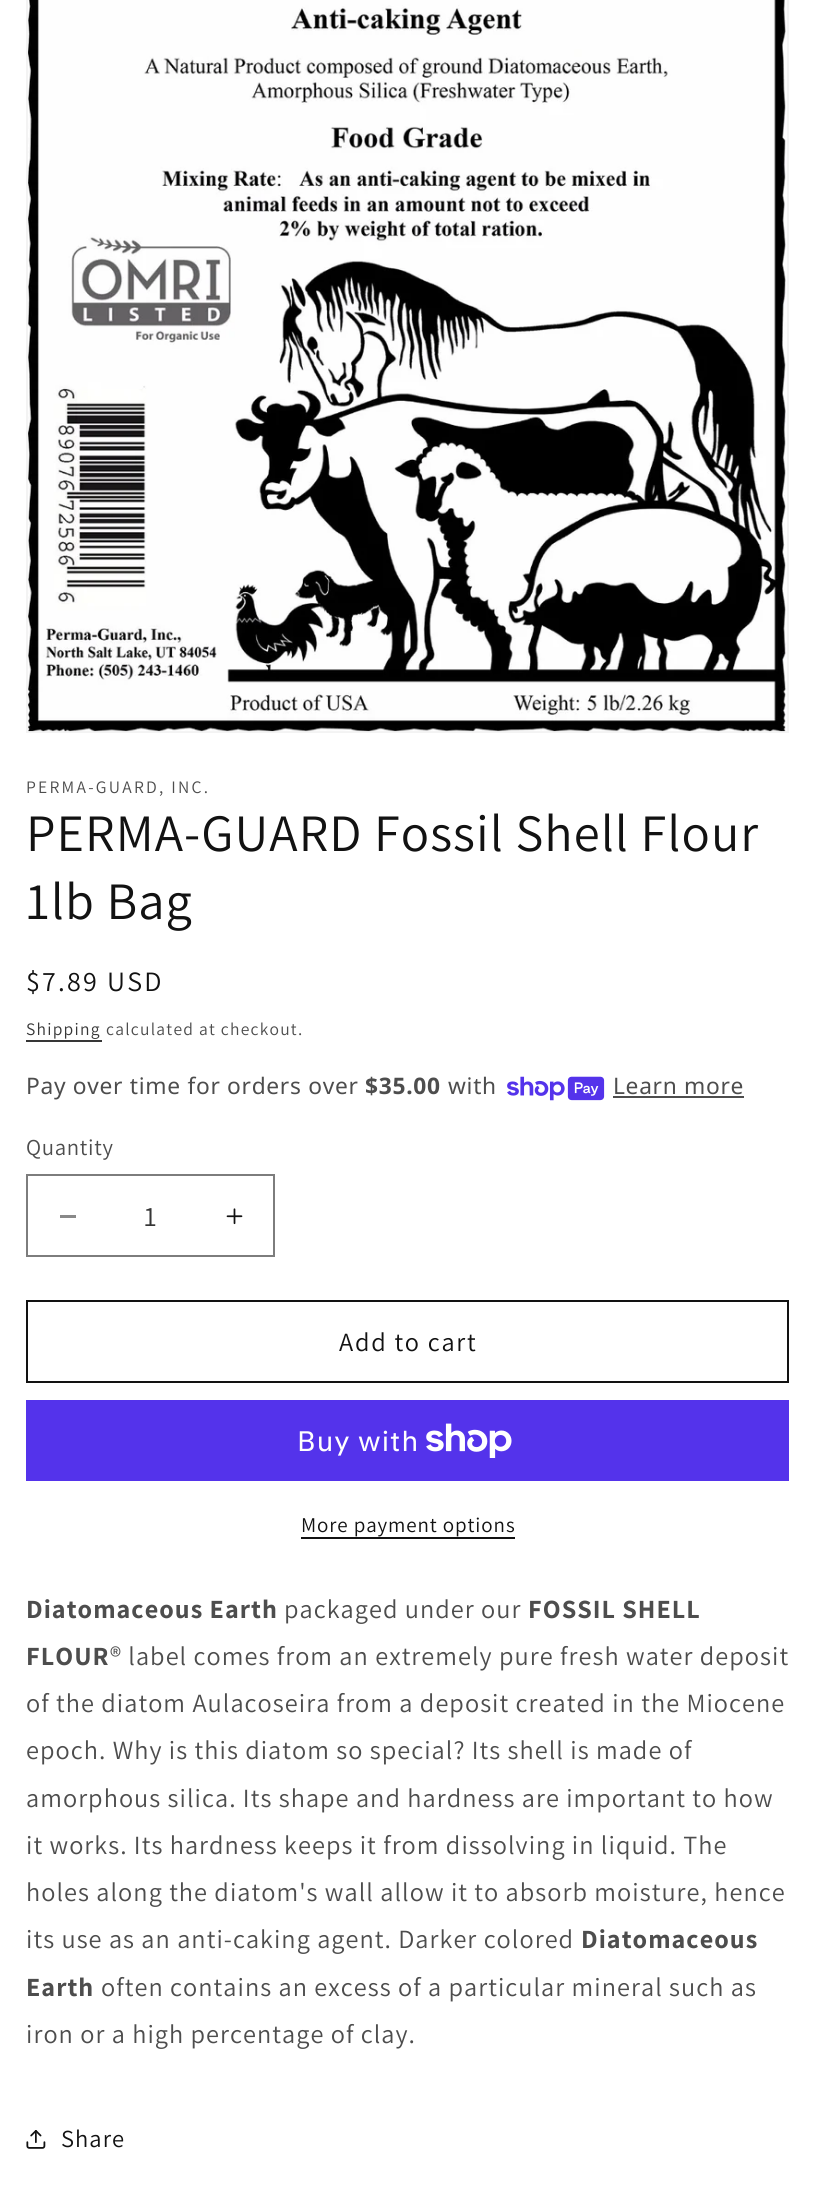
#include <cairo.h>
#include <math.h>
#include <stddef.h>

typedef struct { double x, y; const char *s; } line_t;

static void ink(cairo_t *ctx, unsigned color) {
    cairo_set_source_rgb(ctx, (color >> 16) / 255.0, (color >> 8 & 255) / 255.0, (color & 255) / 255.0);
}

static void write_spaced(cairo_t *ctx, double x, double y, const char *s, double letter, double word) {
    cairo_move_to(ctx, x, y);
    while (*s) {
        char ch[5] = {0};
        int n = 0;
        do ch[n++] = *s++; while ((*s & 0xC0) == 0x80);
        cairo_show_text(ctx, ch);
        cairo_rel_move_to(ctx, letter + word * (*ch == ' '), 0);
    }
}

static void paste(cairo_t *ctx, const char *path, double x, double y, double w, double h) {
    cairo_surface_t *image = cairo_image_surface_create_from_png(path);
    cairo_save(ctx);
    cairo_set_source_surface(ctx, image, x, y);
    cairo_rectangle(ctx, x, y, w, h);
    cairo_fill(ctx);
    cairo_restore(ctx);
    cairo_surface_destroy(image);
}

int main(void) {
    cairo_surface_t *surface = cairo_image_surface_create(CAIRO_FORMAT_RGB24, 815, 2186);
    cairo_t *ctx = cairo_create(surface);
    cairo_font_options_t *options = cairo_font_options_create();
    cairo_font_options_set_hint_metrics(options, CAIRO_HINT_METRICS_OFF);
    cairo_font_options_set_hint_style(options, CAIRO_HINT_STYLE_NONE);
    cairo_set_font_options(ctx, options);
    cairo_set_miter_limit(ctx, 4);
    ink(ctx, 0xFFFFFF);
    cairo_paint(ctx);
    cairo_rectangle(ctx, 27, -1, 761, 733);
    ink(ctx, 0xF3F3F3);
    cairo_stroke(ctx);
    paste(ctx, "media/1.png", 28, 0, 759, 732);
    cairo_select_font_face(ctx, "Assistant", CAIRO_FONT_SLANT_NORMAL, CAIRO_FONT_WEIGHT_NORMAL);
    cairo_set_font_size(ctx, 17.5);
    ink(ctx, 0x4D4D4D);
    write_spaced(ctx, 26, 793, "PERMA-GUARD, INC.", 2.25, 0);
    cairo_set_font_size(ctx, 52.5);
    ink(ctx, 0x121212);
    write_spaced(ctx, 26, 851, "PERMA-GUARD Fossil Shell Flour", 1.05, 0);
    write_spaced(ctx, 26, 919, "1lb Bag", 1.05, 0);
    cairo_set_font_size(ctx, 28);
    write_spaced(ctx, 26, 991, "$7.89 USD", 2.25, 0);
    cairo_set_font_size(ctx, 17.5);
    ink(ctx, 0x363636);
    write_spaced(ctx, 26, 1035, "Shipping", 1.25, 0);
    cairo_rectangle(ctx, 26, 1040, 76, 2);
    cairo_fill(ctx);
    ink(ctx, 0x4D4D4D);
    write_spaced(ctx, 106, 1035, "calculated at checkout.", 1.25, 0);
    cairo_select_font_face(ctx, "Noto Sans", CAIRO_FONT_SLANT_NORMAL, CAIRO_FONT_WEIGHT_NORMAL);
    cairo_set_font_size(ctx, 22.75);
    write_spaced(ctx, 26, 1094, "Pay over time for orders over", 0.7, 0);
    cairo_select_font_face(ctx, "Noto Sans", CAIRO_FONT_SLANT_NORMAL, CAIRO_FONT_WEIGHT_BOLD);
    write_spaced(ctx, 365, 1094, "$35.00", 0.7, 0);
    cairo_select_font_face(ctx, "Noto Sans", CAIRO_FONT_SLANT_NORMAL, CAIRO_FONT_WEIGHT_NORMAL);
    write_spaced(ctx, 448, 1094, "with", 0.7, 0);
    paste(ctx, "media/2.png", 507, 1076, 98, 25);
    write_spaced(ctx, 613, 1094, "Learn more", 0.7, 0);
    cairo_rectangle(ctx, 613, 1096, 131, 2);
    cairo_fill(ctx);
    cairo_select_font_face(ctx, "Assistant", CAIRO_FONT_SLANT_NORMAL, CAIRO_FONT_WEIGHT_NORMAL);
    write_spaced(ctx, 26, 1155, "Quantity", 0.7, 0);
    ink(ctx, 0x898989);
    cairo_rectangle(ctx, 60, 1215, 16, 3);
    cairo_fill(ctx);
    paste(ctx, "media/3.png", 226, 1208, 17, 17);
    cairo_rectangle(ctx, 27, 1175, 247, 81);
    ink(ctx, 0x7D7D7D);
    cairo_stroke(ctx);
    cairo_set_font_size(ctx, 28);
    ink(ctx, 0x363636);
    cairo_move_to(ctx, 144, 1226);
    cairo_show_text(ctx, "1");
    cairo_rectangle(ctx, 27, 1301, 761, 81);
    ink(ctx, 0x121212);
    cairo_stroke(ctx);
    cairo_set_font_size(ctx, 26.25);
    write_spaced(ctx, 339, 1351, "Add to cart", 1.75, 0);
    ink(ctx, 0x5433EB);
    cairo_rectangle(ctx, 26, 1400, 763, 81);
    cairo_fill(ctx);
    cairo_select_font_face(ctx, "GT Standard", CAIRO_FONT_SLANT_NORMAL, CAIRO_FONT_WEIGHT_NORMAL);
    cairo_set_font_size(ctx, 28);
    ink(ctx, 0xFFFFFF);
    write_spaced(ctx, 297, 1451, "Buy with", 1.05, 0);
    paste(ctx, "media/4.png", 426, 1423, 86, 35);
    cairo_select_font_face(ctx, "Assistant", CAIRO_FONT_SLANT_NORMAL, CAIRO_FONT_WEIGHT_NORMAL);
    cairo_set_font_size(ctx, 21);
    ink(ctx, 0x121212);
    write_spaced(ctx, 301, 1532, "More payment options", 0.9, 0);
    cairo_rectangle(ctx, 301, 1537, 214, 2);
    cairo_fill(ctx);
    cairo_select_font_face(ctx, "Assistant", CAIRO_FONT_SLANT_NORMAL, CAIRO_FONT_WEIGHT_BOLD);
    cairo_set_font_size(ctx, 26.25);
    ink(ctx, 0x4D4D4D);
    write_spaced(ctx, 26, 1618, "Diatomaceous Earth", 1.05, 0);
    cairo_select_font_face(ctx, "Assistant", CAIRO_FONT_SLANT_NORMAL, CAIRO_FONT_WEIGHT_NORMAL);
    write_spaced(ctx, 284, 1618, "packaged under our", 1.05, 0);
    cairo_select_font_face(ctx, "Assistant", CAIRO_FONT_SLANT_NORMAL, CAIRO_FONT_WEIGHT_BOLD);
    write_spaced(ctx, 528, 1618, "FOSSIL SHELL", 1.05, 0);
    write_spaced(ctx, 26, 1665, "FLOUR", 1.05, 0);
    cairo_select_font_face(ctx, "Assistant", CAIRO_FONT_SLANT_NORMAL, CAIRO_FONT_WEIGHT_NORMAL);
    {
        static const line_t items[] = {
            {110, 1665, "® label comes from an extremely pure fresh water deposit"},
            {26, 1712, "of the diatom Aulacoseira from a deposit created in the Miocene"},
            {26, 1759, "epoch. Why is this diatom so special? Its shell is made of"},
            {26, 1807, "amorphous silica. Its shape and hardness are important to how"},
            {26, 1854, "it works. Its hardness keeps it from dissolving in liquid. The"},
            {26, 1901, "holes along the diatom's wall allow it to absorb moisture, hence"},
            {26, 1948, "its use as an anti-caking agent. Darker colored"},
        };
        for (size_t i = 0; i < sizeof items / sizeof *items; i++) {
            write_spaced(ctx, items[i].x, items[i].y, items[i].s, 1.05, 0);
        }
    }
    cairo_select_font_face(ctx, "Assistant", CAIRO_FONT_SLANT_NORMAL, CAIRO_FONT_WEIGHT_BOLD);
    write_spaced(ctx, 581, 1948, "Diatomaceous", 1.05, 0);
    write_spaced(ctx, 26, 1996, "Earth", 1.05, 0);
    cairo_select_font_face(ctx, "Assistant", CAIRO_FONT_SLANT_NORMAL, CAIRO_FONT_WEIGHT_NORMAL);
    write_spaced(ctx, 101, 1996, "often contains an excess of a particular mineral such as", 1.05, 0);
    write_spaced(ctx, 26, 2043, "iron or a high percentage of clay.", 1.05, 0);
    paste(ctx, "media/5.png", 26, 2130, 20, 19);
    cairo_set_font_size(ctx, 24.5);
    ink(ctx, 0x121212);
    write_spaced(ctx, 61, 2147, "Share", 1.05, 0);
    cairo_surface_write_to_png(surface, "image.png");
    cairo_font_options_destroy(options);
    cairo_destroy(ctx);
    cairo_surface_destroy(surface);
    return 0;
}
